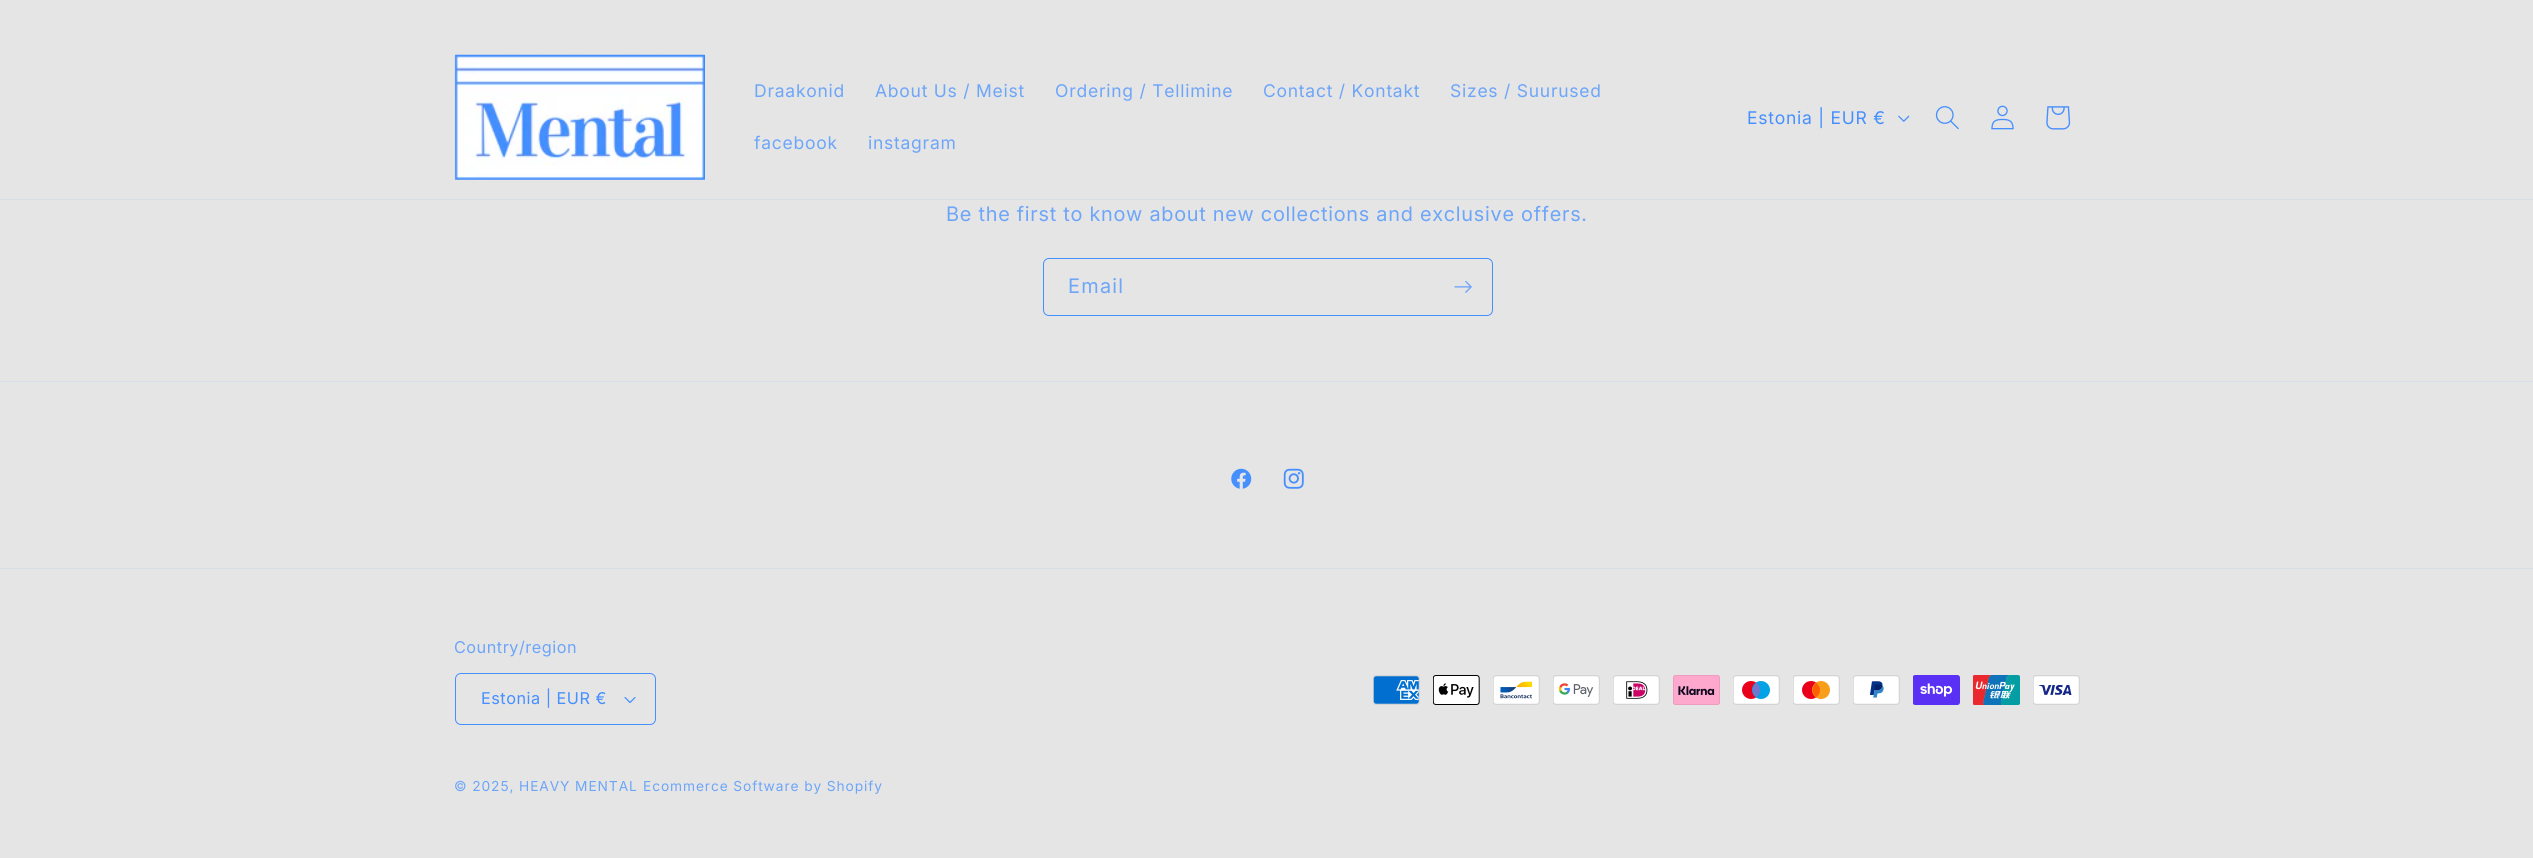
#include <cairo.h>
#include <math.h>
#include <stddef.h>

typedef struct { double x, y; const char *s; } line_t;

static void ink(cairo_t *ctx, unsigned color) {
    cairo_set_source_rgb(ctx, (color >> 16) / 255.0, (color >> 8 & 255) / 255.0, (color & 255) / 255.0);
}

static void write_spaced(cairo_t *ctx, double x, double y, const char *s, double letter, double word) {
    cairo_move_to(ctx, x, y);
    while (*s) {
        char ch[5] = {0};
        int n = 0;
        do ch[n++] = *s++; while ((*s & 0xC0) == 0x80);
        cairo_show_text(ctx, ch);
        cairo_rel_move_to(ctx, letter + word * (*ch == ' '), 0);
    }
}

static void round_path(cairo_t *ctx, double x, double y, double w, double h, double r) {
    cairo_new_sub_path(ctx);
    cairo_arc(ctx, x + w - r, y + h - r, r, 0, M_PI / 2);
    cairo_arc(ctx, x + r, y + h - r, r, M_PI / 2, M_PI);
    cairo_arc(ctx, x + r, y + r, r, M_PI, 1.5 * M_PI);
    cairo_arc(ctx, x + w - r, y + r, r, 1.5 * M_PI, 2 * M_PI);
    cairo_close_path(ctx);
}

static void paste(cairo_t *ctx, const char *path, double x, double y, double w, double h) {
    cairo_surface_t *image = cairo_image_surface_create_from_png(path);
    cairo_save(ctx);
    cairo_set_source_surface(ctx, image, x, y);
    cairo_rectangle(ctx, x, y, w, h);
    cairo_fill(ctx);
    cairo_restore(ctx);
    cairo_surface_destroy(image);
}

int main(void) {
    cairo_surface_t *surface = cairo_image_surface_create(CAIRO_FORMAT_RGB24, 2533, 858);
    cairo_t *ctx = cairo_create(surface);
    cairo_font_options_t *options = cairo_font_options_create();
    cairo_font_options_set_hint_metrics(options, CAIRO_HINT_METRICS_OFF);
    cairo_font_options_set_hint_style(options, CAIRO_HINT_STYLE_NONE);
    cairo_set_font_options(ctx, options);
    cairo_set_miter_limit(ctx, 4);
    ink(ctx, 0xE5E5E5);
    cairo_paint(ctx);
    ink(ctx, 0xD8DEE7);
    cairo_rectangle(ctx, 0, 199, 2533, 1);
    cairo_fill(ctx);
    paste(ctx, "media/1.png", 454, 54, 251, 126);
    cairo_select_font_face(ctx, "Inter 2", CAIRO_FONT_SLANT_NORMAL, CAIRO_FONT_WEIGHT_NORMAL);
    cairo_set_font_size(ctx, 17.5);
    ink(ctx, 0x6DA5F9);
    {
        static const line_t items[] = {
            {754, 97, "Draakonid"},
            {875, 97, "About Us / Meist"},
            {1055, 97, "Ordering / Tellimine"},
            {1263, 97, "Contact / Kontakt"},
            {1450, 97, "Sizes / Suurused"},
            {754, 149, "facebook"},
            {868, 149, "instagram"},
        };
        for (size_t i = 0; i < sizeof items / sizeof *items; i++) {
            write_spaced(ctx, items[i].x, items[i].y, items[i].s, 0.75, 0);
        }
    }
    ink(ctx, 0x458FFF);
    write_spaced(ctx, 1747, 124, "Estonia | EUR €", 0.75, 0);
    paste(ctx, "media/2.png", 1898, 115, 12, 7);
    paste(ctx, "media/3.png", 1935, 106, 24, 24);
    paste(ctx, "media/4.png", 1991, 105, 23, 25);
    paste(ctx, "media/5.png", 2046, 106, 25, 24);
    cairo_select_font_face(ctx, "Inter", CAIRO_FONT_SLANT_NORMAL, CAIRO_FONT_WEIGHT_NORMAL);
    cairo_set_font_size(ctx, 20);
    ink(ctx, 0x6DA5F9);
    write_spaced(ctx, 946, 221, "Be the first to know about new collections and exclusive offers.", 0.75, 0);
    round_path(ctx, 1043.5, 258.5, 449, 57, 5.5);
    ink(ctx, 0x458FFF);
    cairo_set_line_width(ctx, 1);
    cairo_stroke(ctx);
    ink(ctx, 0x6DA5F9);
    write_spaced(ctx, 1068, 293, "Email", 1.25, 0);
    paste(ctx, "media/6.png", 1454, 280, 18, 13);
    ink(ctx, 0xD8DEE7);
    cairo_rectangle(ctx, 0, 381, 2533, 1);
    cairo_fill(ctx);
    paste(ctx, "media/7.png", 1231, 468, 21, 21);
    paste(ctx, "media/8.png", 1283, 468, 21, 21);
    cairo_rectangle(ctx, 0, 568, 2533, 1);
    cairo_fill(ctx);
    cairo_select_font_face(ctx, "Inter 2", CAIRO_FONT_SLANT_NORMAL, CAIRO_FONT_WEIGHT_NORMAL);
    cairo_set_font_size(ctx, 16.25);
    ink(ctx, 0x6DA5F9);
    write_spaced(ctx, 454, 653, "Country/region", 0.5, 0);
    paste(ctx, "media/9.png", 624, 697, 12, 6);
    round_path(ctx, 455.5, 673.5, 200, 51, 5.5);
    ink(ctx, 0x458FFF);
    cairo_stroke(ctx);
    write_spaced(ctx, 481, 704, "Estonia | EUR €", 0.5, 0);
    paste(ctx, "media/10.png", 1373, 675, 47, 30);
    paste(ctx, "media/11.png", 1433, 675, 47, 30);
    paste(ctx, "media/12.png", 1493, 675, 47, 30);
    paste(ctx, "media/13.png", 1553, 675, 47, 30);
    paste(ctx, "media/14.png", 1613, 675, 47, 30);
    paste(ctx, "media/15.png", 1673, 675, 47, 30);
    paste(ctx, "media/16.png", 1733, 675, 47, 30);
    paste(ctx, "media/17.png", 1793, 675, 47, 30);
    paste(ctx, "media/18.png", 1853, 675, 47, 30);
    paste(ctx, "media/19.png", 1913, 675, 47, 30);
    paste(ctx, "media/20.png", 1973, 675, 47, 30);
    paste(ctx, "media/21.png", 2033, 675, 47, 30);
    cairo_set_font_size(ctx, 13.75);
    ink(ctx, 0x6DA5F9);
    write_spaced(ctx, 454, 791, "© 2025, HEAVY MENTAL", 0.9, 0);
    write_spaced(ctx, 643, 791, "Ecommerce Software by Shopify", 0.9, 0);
    cairo_surface_write_to_png(surface, "image.png");
    cairo_font_options_destroy(options);
    cairo_destroy(ctx);
    cairo_surface_destroy(surface);
    return 0;
}
